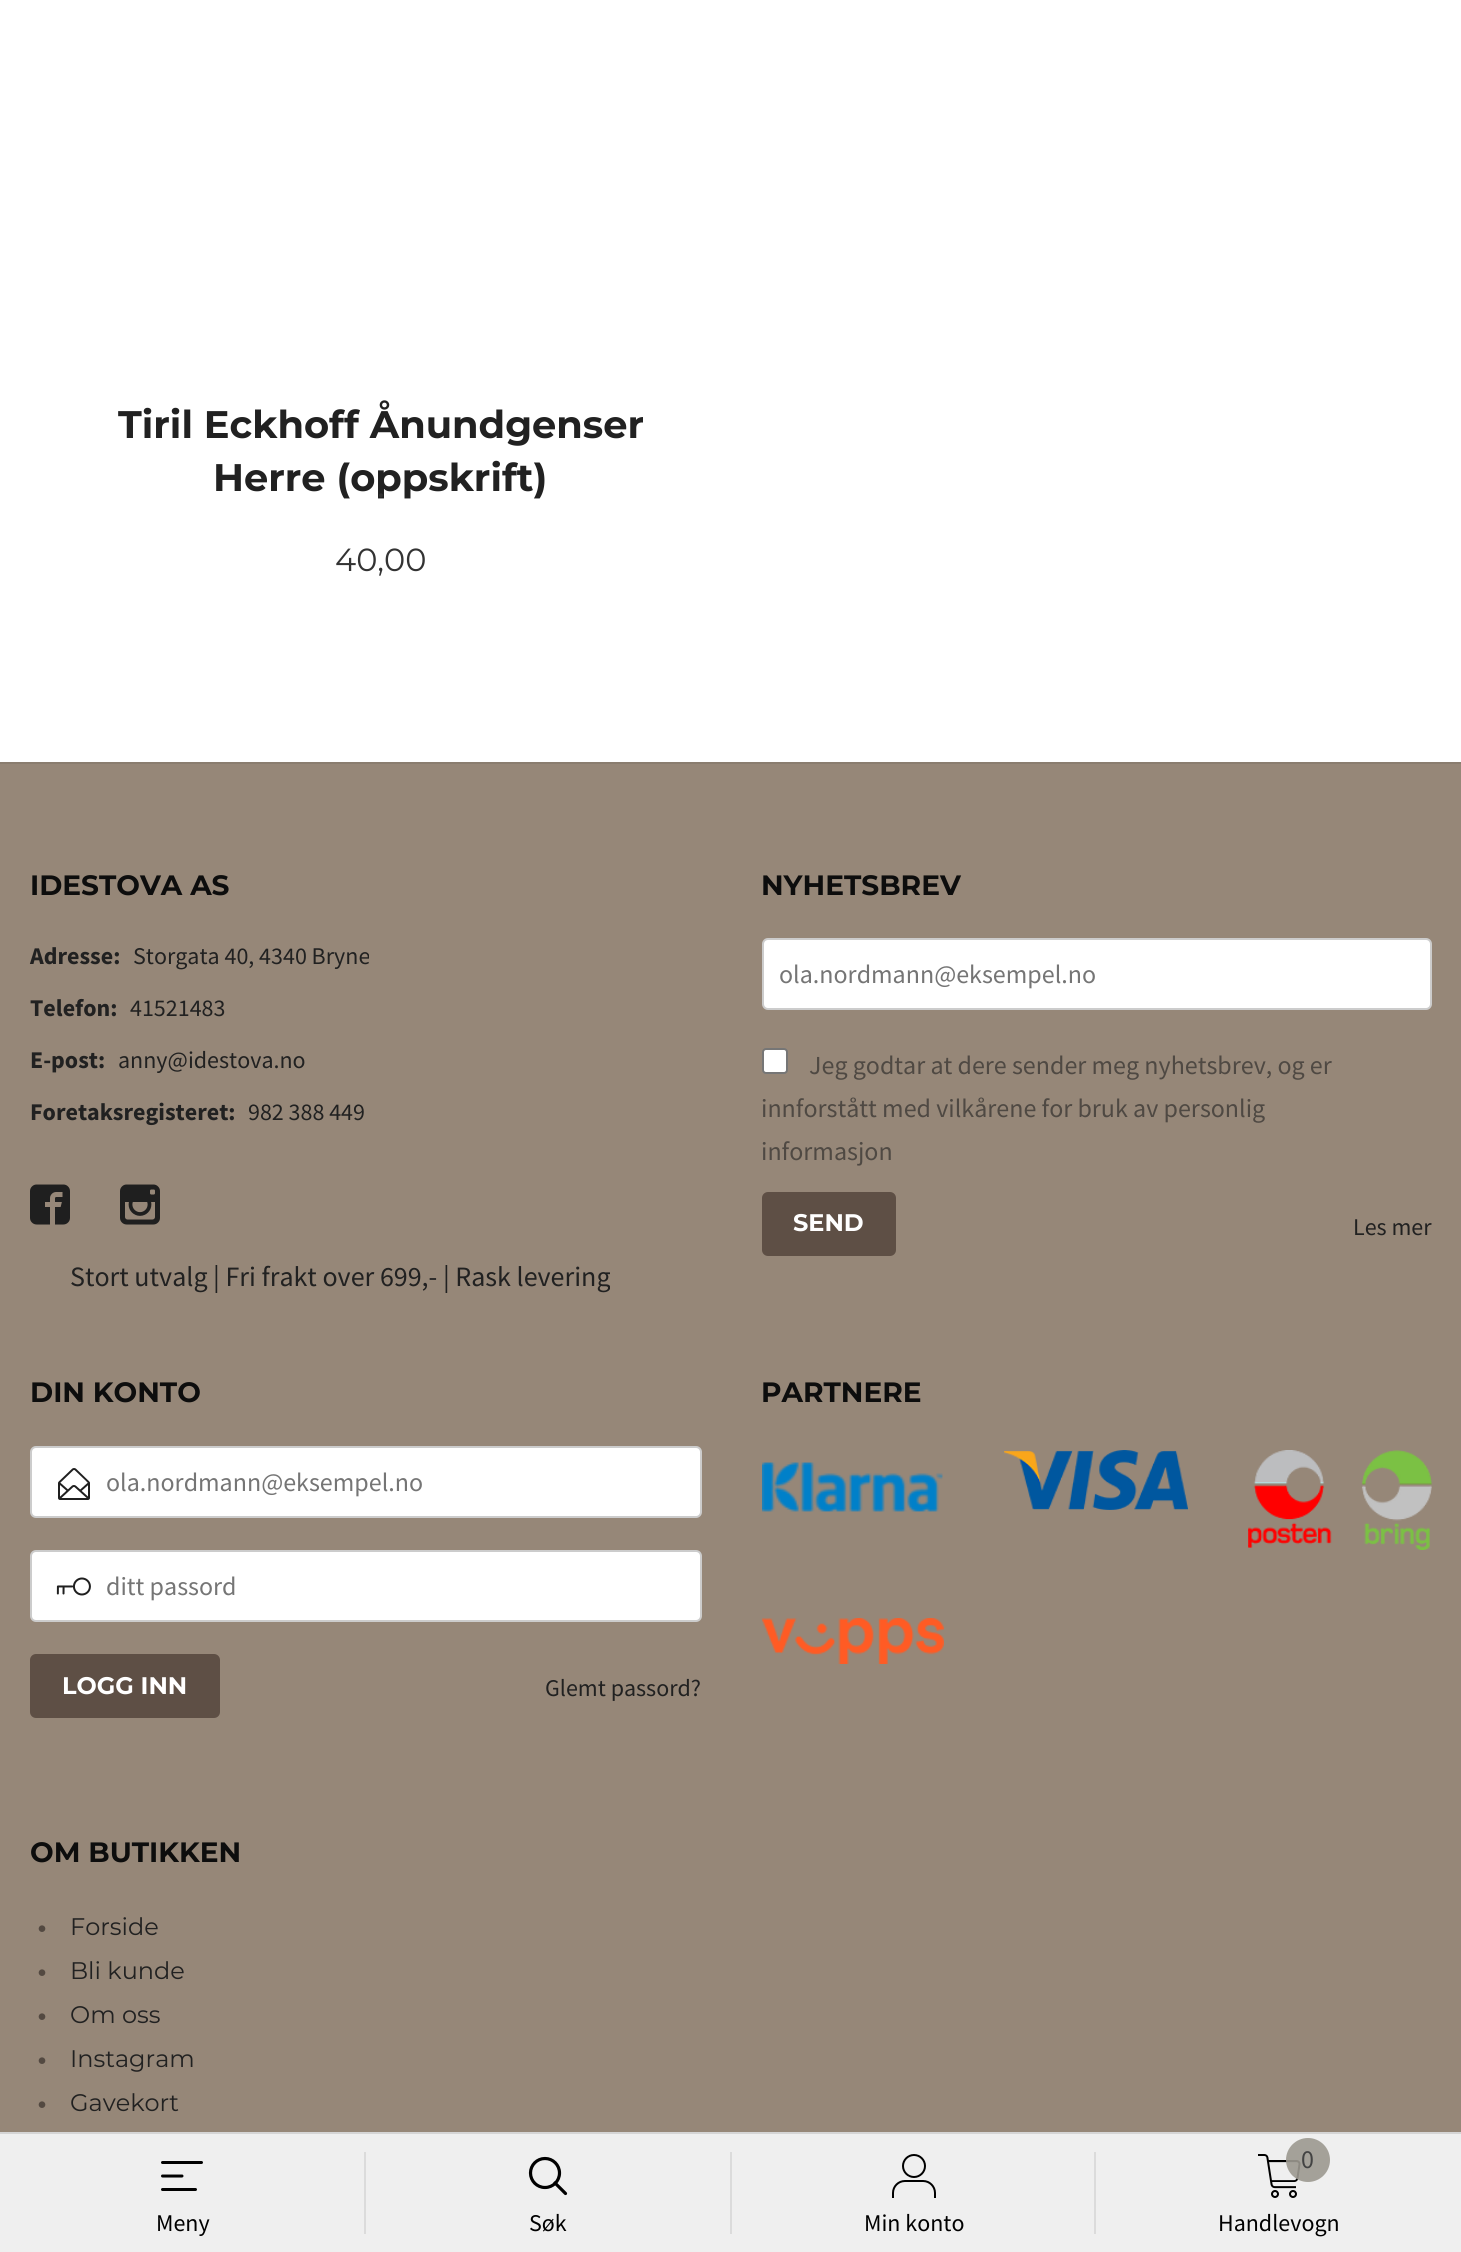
#include <cairo.h>
#include <math.h>
#include <stddef.h>

typedef struct { double x, y; const char *s; } line_t;

static void ink(cairo_t *ctx, unsigned color) {
    cairo_set_source_rgb(ctx, (color >> 16) / 255.0, (color >> 8 & 255) / 255.0, (color & 255) / 255.0);
}

static void round_path(cairo_t *ctx, double x, double y, double w, double h, double r) {
    cairo_new_sub_path(ctx);
    cairo_arc(ctx, x + w - r, y + h - r, r, 0, M_PI / 2);
    cairo_arc(ctx, x + r, y + h - r, r, M_PI / 2, M_PI);
    cairo_arc(ctx, x + r, y + r, r, M_PI, 1.5 * M_PI);
    cairo_arc(ctx, x + w - r, y + r, r, 1.5 * M_PI, 2 * M_PI);
    cairo_close_path(ctx);
}

static void paste(cairo_t *ctx, const char *path, double x, double y, double w, double h) {
    cairo_surface_t *image = cairo_image_surface_create_from_png(path);
    cairo_save(ctx);
    cairo_set_source_surface(ctx, image, x, y);
    cairo_rectangle(ctx, x, y, w, h);
    cairo_fill(ctx);
    cairo_restore(ctx);
    cairo_surface_destroy(image);
}

int main(void) {
    cairo_surface_t *surface = cairo_image_surface_create(CAIRO_FORMAT_RGB24, 1461, 2252);
    cairo_t *ctx = cairo_create(surface);
    cairo_font_options_t *options = cairo_font_options_create();
    cairo_font_options_set_hint_metrics(options, CAIRO_HINT_METRICS_OFF);
    cairo_font_options_set_hint_style(options, CAIRO_HINT_STYLE_NONE);
    cairo_set_font_options(ctx, options);
    cairo_set_miter_limit(ctx, 4);
    ink(ctx, 0xFFFFFF);
    cairo_paint(ctx);
    cairo_select_font_face(ctx, "Montserrat", CAIRO_FONT_SLANT_NORMAL, CAIRO_FONT_WEIGHT_BOLD);
    cairo_set_font_size(ctx, 38.4);
    ink(ctx, 0x212121);
    cairo_move_to(ctx, 118, 438);
    cairo_show_text(ctx, "Tiril Eckhoff Ånundgenser");
    cairo_move_to(ctx, 213, 491);
    cairo_show_text(ctx, "Herre (oppskrift)");
    cairo_select_font_face(ctx, "Source Sans Pro", CAIRO_FONT_SLANT_NORMAL, CAIRO_FONT_WEIGHT_NORMAL);
    cairo_set_font_size(ctx, 32);
    ink(ctx, 0x333333);
    cairo_move_to(ctx, 377, 497);
    cairo_show_text(ctx, ".");
    cairo_select_font_face(ctx, "Montserrat", CAIRO_FONT_SLANT_NORMAL, CAIRO_FONT_WEIGHT_NORMAL);
    cairo_move_to(ctx, 335, 571);
    cairo_show_text(ctx, "40,00");
    ink(ctx, 0x968778);
    cairo_rectangle(ctx, 0, 764, 1461, 1368);
    cairo_fill(ctx);
    ink(ctx, 0x8A7D6F);
    cairo_rectangle(ctx, 0, 762, 1461, 2);
    cairo_fill(ctx);
    cairo_select_font_face(ctx, "Montserrat", CAIRO_FONT_SLANT_NORMAL, CAIRO_FONT_WEIGHT_BOLD);
    cairo_set_font_size(ctx, 28);
    ink(ctx, 0x0D0D0D);
    cairo_move_to(ctx, 30, 895);
    cairo_show_text(ctx, "IDESTOVA AS");
    cairo_select_font_face(ctx, "Source Sans Pro", CAIRO_FONT_SLANT_NORMAL, CAIRO_FONT_WEIGHT_BOLD);
    cairo_set_font_size(ctx, 24);
    ink(ctx, 0x212121);
    cairo_move_to(ctx, 30, 964);
    cairo_show_text(ctx, "Adresse:");
    cairo_select_font_face(ctx, "Source Sans Pro", CAIRO_FONT_SLANT_NORMAL, CAIRO_FONT_WEIGHT_NORMAL);
    cairo_move_to(ctx, 133, 964);
    cairo_show_text(ctx, "Storgata 40, 4340 Bryne");
    cairo_select_font_face(ctx, "Source Sans Pro", CAIRO_FONT_SLANT_NORMAL, CAIRO_FONT_WEIGHT_BOLD);
    cairo_move_to(ctx, 30, 1016);
    cairo_show_text(ctx, "Telefon:");
    cairo_select_font_face(ctx, "Source Sans Pro", CAIRO_FONT_SLANT_NORMAL, CAIRO_FONT_WEIGHT_NORMAL);
    cairo_move_to(ctx, 130, 1016);
    cairo_show_text(ctx, "41521483");
    cairo_select_font_face(ctx, "Source Sans Pro", CAIRO_FONT_SLANT_NORMAL, CAIRO_FONT_WEIGHT_BOLD);
    cairo_move_to(ctx, 30, 1068);
    cairo_show_text(ctx, "E-post:");
    cairo_select_font_face(ctx, "Source Sans Pro", CAIRO_FONT_SLANT_NORMAL, CAIRO_FONT_WEIGHT_NORMAL);
    cairo_move_to(ctx, 118, 1068);
    cairo_show_text(ctx, "anny@idestova.no");
    cairo_select_font_face(ctx, "Source Sans Pro", CAIRO_FONT_SLANT_NORMAL, CAIRO_FONT_WEIGHT_BOLD);
    cairo_move_to(ctx, 30, 1120);
    cairo_show_text(ctx, "Foretaksregisteret:");
    cairo_select_font_face(ctx, "Source Sans Pro", CAIRO_FONT_SLANT_NORMAL, CAIRO_FONT_WEIGHT_NORMAL);
    cairo_move_to(ctx, 248, 1120);
    cairo_show_text(ctx, "982 388 449");
    paste(ctx, "media/1.png", 30, 1184, 40, 41);
    paste(ctx, "media/2.png", 120, 1184, 40, 41);
    cairo_set_font_size(ctx, 28);
    cairo_move_to(ctx, 70, 1286);
    cairo_show_text(ctx, "Stort utvalg | Fri frakt over 699,- | Rask levering");
    cairo_select_font_face(ctx, "Montserrat", CAIRO_FONT_SLANT_NORMAL, CAIRO_FONT_WEIGHT_BOLD);
    ink(ctx, 0x0D0D0D);
    cairo_move_to(ctx, 761, 895);
    cairo_show_text(ctx, "NYHETSBREV");
    ink(ctx, 0xFFFFFF);
    round_path(ctx, 763, 939, 668, 70, 5);
    cairo_fill_preserve(ctx);
    ink(ctx, 0xCCCCCC);
    cairo_stroke(ctx);
    cairo_select_font_face(ctx, "Source Sans Pro", CAIRO_FONT_SLANT_NORMAL, CAIRO_FONT_WEIGHT_NORMAL);
    cairo_set_font_size(ctx, 26);
    ink(ctx, 0x757575);
    cairo_move_to(ctx, 779, 983);
    cairo_show_text(ctx, "ola.nordmann@eksempel.no");
    ink(ctx, 0xFFFFFF);
    round_path(ctx, 763, 1049, 24, 24, 3);
    cairo_fill_preserve(ctx);
    ink(ctx, 0x767676);
    cairo_stroke(ctx);
    ink(ctx, 0x4F4943);
    {
        static const line_t items[] = {
            {809, 1074, "Jeg godtar at dere sender meg nyhetsbrev, og er"},
            {761, 1117, "innforstått med vilkårene for bruk av personlig"},
            {761, 1160, "informasjon"},
        };
        for (size_t i = 0; i < sizeof items / sizeof *items; i++) {
            cairo_move_to(ctx, items[i].x, items[i].y);
            cairo_show_text(ctx, items[i].s);
        }
    }
    ink(ctx, 0x5E4F45);
    round_path(ctx, 762, 1192, 134, 64, 6);
    cairo_fill(ctx);
    cairo_select_font_face(ctx, "Montserrat", CAIRO_FONT_SLANT_NORMAL, CAIRO_FONT_WEIGHT_BOLD);
    cairo_set_font_size(ctx, 24);
    ink(ctx, 0xFFFFFF);
    cairo_move_to(ctx, 793, 1231);
    cairo_show_text(ctx, "SEND");
    cairo_select_font_face(ctx, "Source Sans Pro", CAIRO_FONT_SLANT_NORMAL, CAIRO_FONT_WEIGHT_NORMAL);
    ink(ctx, 0x212121);
    cairo_move_to(ctx, 1353, 1235);
    cairo_show_text(ctx, "Les mer");
    cairo_select_font_face(ctx, "Montserrat", CAIRO_FONT_SLANT_NORMAL, CAIRO_FONT_WEIGHT_BOLD);
    cairo_set_font_size(ctx, 28);
    ink(ctx, 0x0D0D0D);
    cairo_move_to(ctx, 30, 1402);
    cairo_show_text(ctx, "DIN KONTO");
    ink(ctx, 0xFFFFFF);
    round_path(ctx, 31, 1447, 670, 70, 5);
    cairo_fill_preserve(ctx);
    ink(ctx, 0xCCCCCC);
    cairo_stroke(ctx);
    paste(ctx, "media/3.png", 58, 1468, 32, 32);
    cairo_select_font_face(ctx, "Source Sans Pro", CAIRO_FONT_SLANT_NORMAL, CAIRO_FONT_WEIGHT_NORMAL);
    cairo_set_font_size(ctx, 26);
    ink(ctx, 0x757575);
    cairo_move_to(ctx, 106, 1491);
    cairo_show_text(ctx, "ola.nordmann@eksempel.no");
    ink(ctx, 0xFFFFFF);
    round_path(ctx, 31, 1551, 670, 70, 5);
    cairo_fill_preserve(ctx);
    ink(ctx, 0xCCCCCC);
    cairo_stroke(ctx);
    paste(ctx, "media/4.png", 56, 1577, 35, 19);
    ink(ctx, 0x757575);
    cairo_move_to(ctx, 106, 1595);
    cairo_show_text(ctx, "ditt passord");
    ink(ctx, 0x5E4F45);
    round_path(ctx, 30, 1654, 190, 64, 6);
    cairo_fill(ctx);
    cairo_select_font_face(ctx, "Montserrat", CAIRO_FONT_SLANT_NORMAL, CAIRO_FONT_WEIGHT_BOLD);
    cairo_set_font_size(ctx, 24);
    ink(ctx, 0xFFFFFF);
    cairo_move_to(ctx, 62, 1694);
    cairo_show_text(ctx, "LOGG INN");
    cairo_select_font_face(ctx, "Source Sans Pro", CAIRO_FONT_SLANT_NORMAL, CAIRO_FONT_WEIGHT_NORMAL);
    ink(ctx, 0x212121);
    cairo_move_to(ctx, 545, 1696);
    cairo_show_text(ctx, "Glemt passord?");
    cairo_select_font_face(ctx, "Montserrat", CAIRO_FONT_SLANT_NORMAL, CAIRO_FONT_WEIGHT_BOLD);
    cairo_set_font_size(ctx, 28);
    ink(ctx, 0x0D0D0D);
    cairo_move_to(ctx, 30, 1862);
    cairo_show_text(ctx, "OM BUTIKKEN");
    paste(ctx, "media/5.png", 38, 1925, 8, 7);
    cairo_select_font_face(ctx, "Montserrat", CAIRO_FONT_SLANT_NORMAL, CAIRO_FONT_WEIGHT_NORMAL);
    cairo_set_font_size(ctx, 24);
    ink(ctx, 0x212121);
    cairo_move_to(ctx, 70, 1935);
    cairo_show_text(ctx, "Forside");
    paste(ctx, "media/5.png", 38, 1969, 8, 7);
    cairo_move_to(ctx, 70, 1979);
    cairo_show_text(ctx, "Bli kunde");
    paste(ctx, "media/5.png", 38, 2013, 8, 7);
    cairo_move_to(ctx, 70, 2023);
    cairo_show_text(ctx, "Om oss");
    paste(ctx, "media/5.png", 38, 2057, 8, 7);
    cairo_move_to(ctx, 70, 2067);
    cairo_show_text(ctx, "Instagram");
    paste(ctx, "media/5.png", 38, 2101, 8, 7);
    cairo_move_to(ctx, 70, 2111);
    cairo_show_text(ctx, "Gavekort");
    cairo_select_font_face(ctx, "Montserrat", CAIRO_FONT_SLANT_NORMAL, CAIRO_FONT_WEIGHT_BOLD);
    cairo_set_font_size(ctx, 28);
    ink(ctx, 0x0D0D0D);
    cairo_move_to(ctx, 761, 1402);
    cairo_show_text(ctx, "PARTNERE");
    paste(ctx, "media/6.png", 762, 1462, 181, 50);
    paste(ctx, "media/7.png", 1004, 1450, 184, 60);
    paste(ctx, "media/8.png", 1248, 1450, 184, 100);
    paste(ctx, "media/9.png", 762, 1618, 182, 46);
    ink(ctx, 0xEFEFEF);
    cairo_rectangle(ctx, 0, 2134, 1461, 118);
    cairo_fill(ctx);
    ink(ctx, 0xD5D5D5);
    cairo_rectangle(ctx, 0, 2132, 1461, 2);
    cairo_fill(ctx);
    paste(ctx, "media/10.png", 161, 2161, 42, 30);
    cairo_select_font_face(ctx, "Source Sans Pro", CAIRO_FONT_SLANT_NORMAL, CAIRO_FONT_WEIGHT_NORMAL);
    cairo_set_font_size(ctx, 24);
    ink(ctx, 0x000000);
    cairo_move_to(ctx, 156, 2231);
    cairo_show_text(ctx, "Meny");
    ink(ctx, 0xDBDBDB);
    cairo_rectangle(ctx, 364, 2152, 2, 82);
    cairo_fill(ctx);
    cairo_arc(ctx, 545, 2173, 14.5, 0, 2 * M_PI);
    ink(ctx, 0x000000);
    cairo_set_line_width(ctx, 3.2);
    cairo_stroke(ctx);
    cairo_new_path(ctx);
    cairo_move_to(ctx, 565.5, 2193.5);
    cairo_line_to(ctx, 555, 2183);
    cairo_set_line_cap(ctx, CAIRO_LINE_CAP_ROUND);
    cairo_stroke(ctx);
    cairo_move_to(ctx, 529, 2231);
    cairo_show_text(ctx, "Søk");
    ink(ctx, 0xDBDBDB);
    cairo_rectangle(ctx, 730, 2152, 2, 82);
    cairo_fill(ctx);
    paste(ctx, "media/11.png", 892, 2154, 44, 44);
    ink(ctx, 0x000000);
    cairo_move_to(ctx, 864, 2231);
    cairo_show_text(ctx, "Min konto");
    ink(ctx, 0xDBDBDB);
    cairo_rectangle(ctx, 1094, 2152, 2, 82);
    cairo_fill(ctx);
    paste(ctx, "media/12.png", 1258, 2154, 43, 44);
    cairo_set_source_rgba(ctx, 0.616, 0.6, 0.565, 0.9);
    cairo_arc(ctx, 1308, 2160, 22, 0, 2 * M_PI);
    cairo_fill(ctx);
    cairo_set_font_size(ctx, 26);
    ink(ctx, 0x434343);
    cairo_move_to(ctx, 1301, 2168);
    cairo_show_text(ctx, "0");
    cairo_set_font_size(ctx, 24);
    ink(ctx, 0x000000);
    cairo_move_to(ctx, 1218, 2231);
    cairo_show_text(ctx, "Handlevogn");
    cairo_surface_write_to_png(surface, "image.png");
    cairo_font_options_destroy(options);
    cairo_destroy(ctx);
    cairo_surface_destroy(surface);
    return 0;
}
